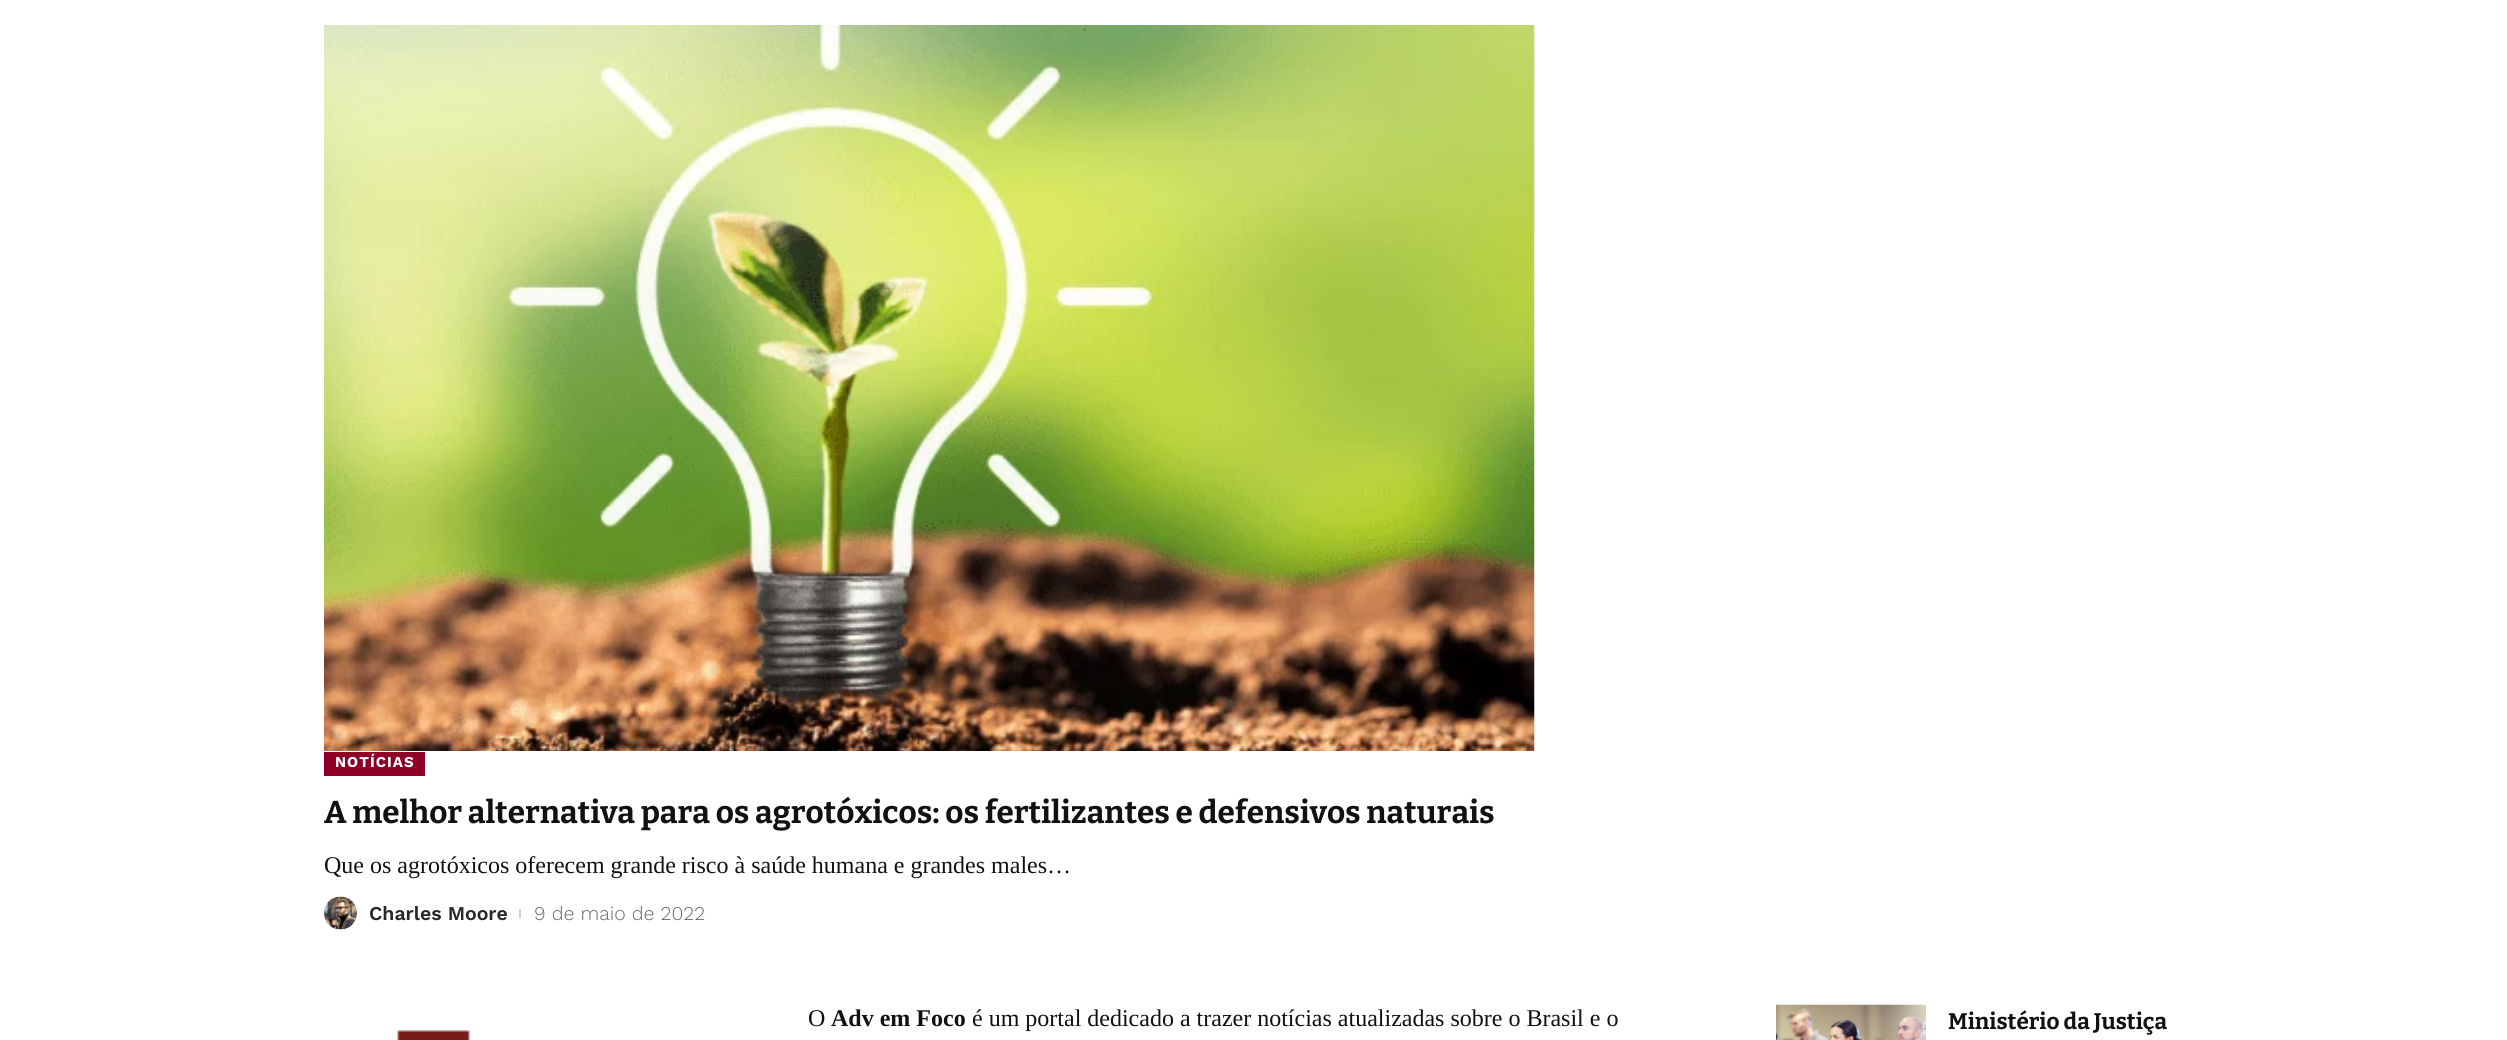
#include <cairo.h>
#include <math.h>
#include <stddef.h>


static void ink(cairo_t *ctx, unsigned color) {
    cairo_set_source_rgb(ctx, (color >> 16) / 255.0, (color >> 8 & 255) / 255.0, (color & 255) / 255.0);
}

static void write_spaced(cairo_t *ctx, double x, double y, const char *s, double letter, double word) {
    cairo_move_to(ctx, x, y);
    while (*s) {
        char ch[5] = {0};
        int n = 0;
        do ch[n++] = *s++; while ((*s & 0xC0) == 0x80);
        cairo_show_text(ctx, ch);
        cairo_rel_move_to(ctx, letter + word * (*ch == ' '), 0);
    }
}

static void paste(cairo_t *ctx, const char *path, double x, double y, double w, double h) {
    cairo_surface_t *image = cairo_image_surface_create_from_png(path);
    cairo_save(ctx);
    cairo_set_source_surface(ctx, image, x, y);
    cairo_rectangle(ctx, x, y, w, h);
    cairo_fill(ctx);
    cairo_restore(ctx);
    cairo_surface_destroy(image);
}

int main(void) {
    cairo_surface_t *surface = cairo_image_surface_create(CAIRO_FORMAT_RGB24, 2507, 1040);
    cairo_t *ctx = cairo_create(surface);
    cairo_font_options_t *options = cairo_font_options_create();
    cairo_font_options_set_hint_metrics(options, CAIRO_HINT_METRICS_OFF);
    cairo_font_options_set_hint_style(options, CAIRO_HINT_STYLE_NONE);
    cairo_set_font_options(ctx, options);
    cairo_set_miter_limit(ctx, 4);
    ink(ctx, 0xFFFFFF);
    cairo_paint(ctx);
    paste(ctx, "media/1.png", 324, 25, 1211, 726);
    ink(ctx, 0x8E0026);
    cairo_rectangle(ctx, 324, 752, 101, 24);
    cairo_fill(ctx);
    cairo_select_font_face(ctx, "Work Sans", CAIRO_FONT_SLANT_NORMAL, CAIRO_FONT_WEIGHT_BOLD);
    cairo_set_font_size(ctx, 15);
    ink(ctx, 0xFFFFFF);
    write_spaced(ctx, 335, 767, "NOTÍCIAS", 1, 0);
    cairo_select_font_face(ctx, "Bitter", CAIRO_FONT_SLANT_NORMAL, CAIRO_FONT_WEIGHT_BOLD);
    cairo_set_font_size(ctx, 31.5);
    ink(ctx, 0x111111);
    cairo_move_to(ctx, 324, 823);
    cairo_show_text(ctx, "A melhor alternativa para os agrotóxicos: os fertilizantes e defensivos naturais");
    cairo_select_font_face(ctx, "Liberation Serif", CAIRO_FONT_SLANT_NORMAL, CAIRO_FONT_WEIGHT_NORMAL);
    cairo_set_font_size(ctx, 24);
    cairo_move_to(ctx, 324, 873);
    cairo_show_text(ctx, "Que os agrotóxicos oferecem grande risco à saúde humana e grandes males…");
    paste(ctx, "media/2.png", 324, 896, 33, 34);
    cairo_select_font_face(ctx, "Work Sans SemiBold", CAIRO_FONT_SLANT_NORMAL, CAIRO_FONT_WEIGHT_NORMAL);
    cairo_set_font_size(ctx, 19.5);
    ink(ctx, 0x282828);
    cairo_move_to(ctx, 369, 920);
    cairo_show_text(ctx, "Charles Moore");
    ink(ctx, 0xD1D1D1);
    cairo_rectangle(ctx, 519, 909, 2, 9);
    cairo_fill(ctx);
    cairo_select_font_face(ctx, "Work Sans Light", CAIRO_FONT_SLANT_NORMAL, CAIRO_FONT_WEIGHT_NORMAL);
    ink(ctx, 0x666666);
    cairo_move_to(ctx, 534, 920);
    cairo_show_text(ctx, "9 de maio de 2022");
    paste(ctx, "media/3.png", 396, 1030, 75, 10);
    cairo_select_font_face(ctx, "Liberation Serif", CAIRO_FONT_SLANT_NORMAL, CAIRO_FONT_WEIGHT_NORMAL);
    cairo_set_font_size(ctx, 24);
    ink(ctx, 0x111111);
    cairo_move_to(ctx, 808, 1026);
    cairo_show_text(ctx, "O");
    cairo_select_font_face(ctx, "Liberation Serif", CAIRO_FONT_SLANT_NORMAL, CAIRO_FONT_WEIGHT_BOLD);
    cairo_move_to(ctx, 831, 1026);
    cairo_show_text(ctx, "Adv em Foco");
    cairo_select_font_face(ctx, "Liberation Serif", CAIRO_FONT_SLANT_NORMAL, CAIRO_FONT_WEIGHT_NORMAL);
    cairo_move_to(ctx, 972, 1026);
    cairo_show_text(ctx, "é um portal dedicado a trazer notícias atualizadas sobre o Brasil e o");
    paste(ctx, "media/4.png", 1776, 1004, 150, 36);
    cairo_select_font_face(ctx, "Bitter", CAIRO_FONT_SLANT_NORMAL, CAIRO_FONT_WEIGHT_BOLD);
    cairo_set_font_size(ctx, 22.5);
    cairo_move_to(ctx, 1948, 1029);
    cairo_show_text(ctx, "Ministério da Justiça");
    cairo_surface_write_to_png(surface, "image.png");
    cairo_font_options_destroy(options);
    cairo_destroy(ctx);
    cairo_surface_destroy(surface);
    return 0;
}
